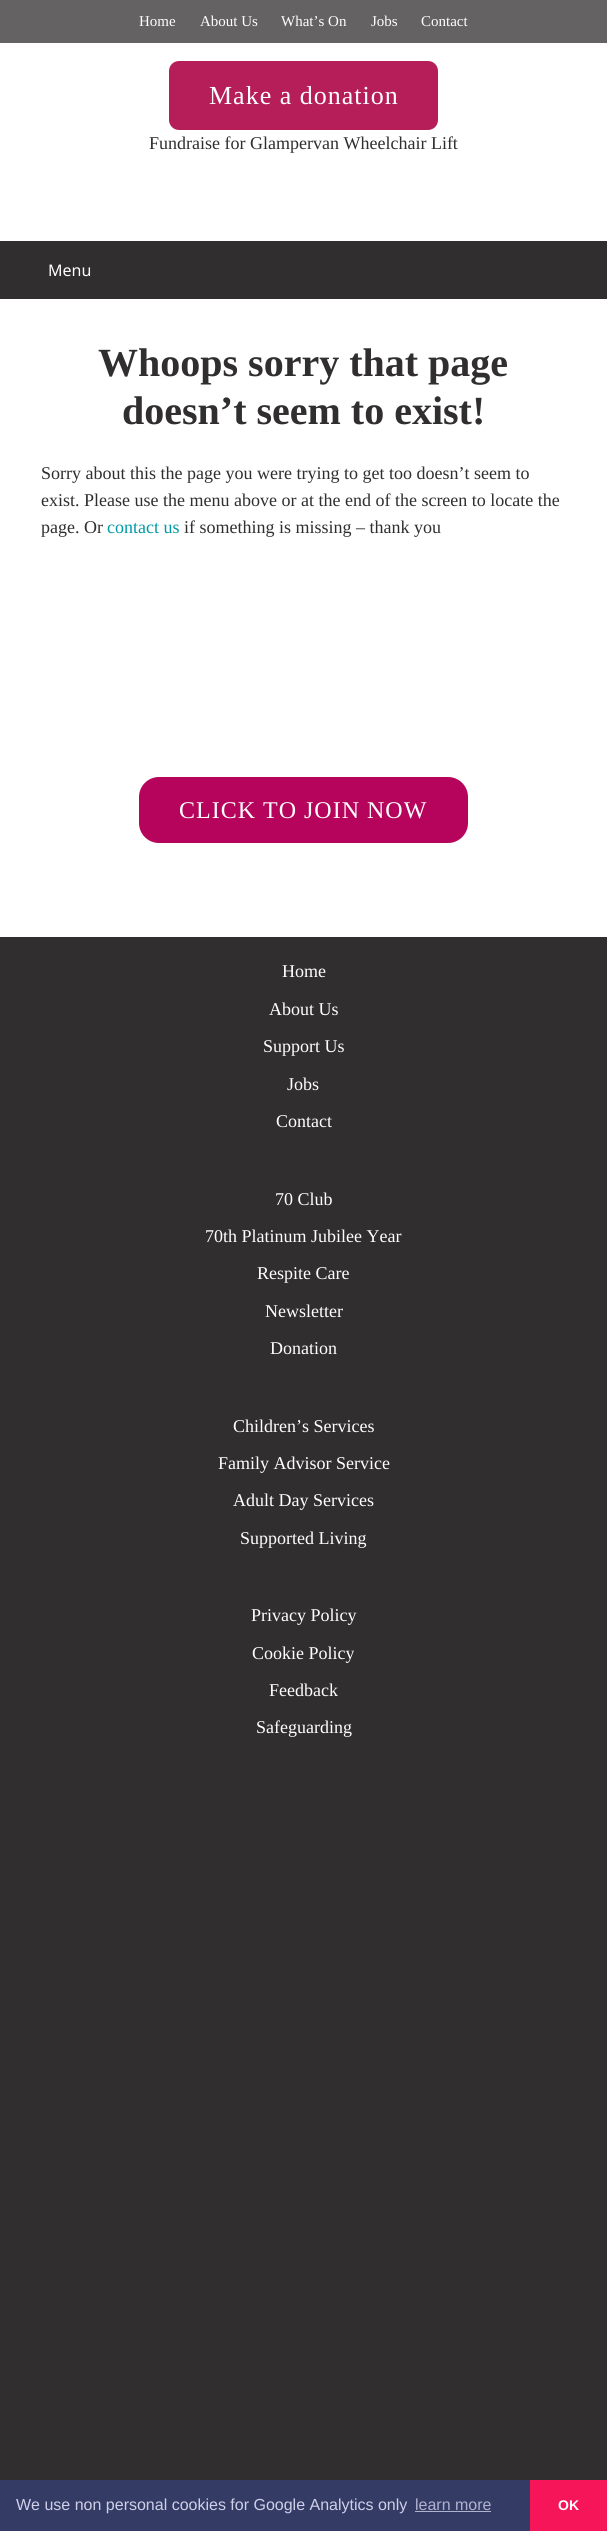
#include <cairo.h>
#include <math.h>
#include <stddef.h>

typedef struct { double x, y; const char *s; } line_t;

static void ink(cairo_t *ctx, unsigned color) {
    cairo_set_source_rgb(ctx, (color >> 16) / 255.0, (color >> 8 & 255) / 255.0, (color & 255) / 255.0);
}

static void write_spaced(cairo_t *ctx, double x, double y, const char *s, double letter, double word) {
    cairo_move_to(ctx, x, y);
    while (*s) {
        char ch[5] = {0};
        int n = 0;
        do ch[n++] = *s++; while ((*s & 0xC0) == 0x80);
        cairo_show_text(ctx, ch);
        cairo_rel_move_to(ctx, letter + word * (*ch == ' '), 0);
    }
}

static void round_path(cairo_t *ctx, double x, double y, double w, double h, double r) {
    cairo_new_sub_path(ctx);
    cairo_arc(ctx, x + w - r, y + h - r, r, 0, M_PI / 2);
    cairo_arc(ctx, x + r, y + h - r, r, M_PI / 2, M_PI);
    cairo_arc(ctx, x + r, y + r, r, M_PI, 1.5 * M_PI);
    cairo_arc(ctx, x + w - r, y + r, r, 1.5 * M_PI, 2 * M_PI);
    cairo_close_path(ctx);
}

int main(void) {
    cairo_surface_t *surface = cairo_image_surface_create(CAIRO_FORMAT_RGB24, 607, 2531);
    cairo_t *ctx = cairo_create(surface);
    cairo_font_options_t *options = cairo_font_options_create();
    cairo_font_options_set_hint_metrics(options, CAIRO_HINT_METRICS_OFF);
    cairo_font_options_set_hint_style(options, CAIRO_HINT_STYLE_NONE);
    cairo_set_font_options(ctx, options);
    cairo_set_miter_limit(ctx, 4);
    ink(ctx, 0xFFFFFF);
    cairo_paint(ctx);
    ink(ctx, 0x646263);
    cairo_rectangle(ctx, 0, 0, 607, 43);
    cairo_fill(ctx);
    cairo_select_font_face(ctx, "Liberation Serif", CAIRO_FONT_SLANT_NORMAL, CAIRO_FONT_WEIGHT_NORMAL);
    cairo_set_font_size(ctx, 15);
    ink(ctx, 0xFFFFFF);
    {
        static const line_t items[] = {
            {139, 26, "Home"},
            {200, 26, "About Us"},
            {281, 26, "What’s On"},
            {371, 26, "Jobs"},
            {421, 26, "Contact"},
        };
        for (size_t i = 0; i < sizeof items / sizeof *items; i++) {
            cairo_move_to(ctx, items[i].x, items[i].y);
            cairo_show_text(ctx, items[i].s);
        }
    }
    ink(ctx, 0xB61E59);
    round_path(ctx, 169, 61, 269, 69, 10);
    cairo_fill(ctx);
    cairo_set_font_size(ctx, 26);
    ink(ctx, 0xFFFFFF);
    write_spaced(ctx, 209, 104, "Make a donation", 1, 0);
    cairo_set_font_size(ctx, 18);
    ink(ctx, 0x302E2F);
    cairo_move_to(ctx, 149, 149);
    cairo_show_text(ctx, "Fundraise for Glampervan Wheelchair Lift");
    cairo_rectangle(ctx, 0, 241, 607, 58);
    cairo_fill(ctx);
    cairo_select_font_face(ctx, "Noto Sans", CAIRO_FONT_SLANT_NORMAL, CAIRO_FONT_WEIGHT_NORMAL);
    cairo_set_font_size(ctx, 16);
    ink(ctx, 0xFFFFFF);
    cairo_move_to(ctx, 48, 276);
    cairo_show_text(ctx, "Menu");
    cairo_select_font_face(ctx, "Liberation Serif", CAIRO_FONT_SLANT_NORMAL, CAIRO_FONT_WEIGHT_BOLD);
    cairo_set_font_size(ctx, 40);
    ink(ctx, 0x302E2F);
    cairo_move_to(ctx, 98, 376);
    cairo_show_text(ctx, "Whoops sorry that page");
    cairo_move_to(ctx, 122, 424);
    cairo_show_text(ctx, "doesn’t seem to exist!");
    cairo_select_font_face(ctx, "Liberation Serif", CAIRO_FONT_SLANT_NORMAL, CAIRO_FONT_WEIGHT_NORMAL);
    cairo_set_font_size(ctx, 18);
    {
        static const line_t items[] = {
            {41, 479, "Sorry about this the page you were trying to get too doesn’t seem to"},
            {41, 506, "exist. Please use the menu above or at the end of the screen to locate the"},
            {41, 533, "page. Or"},
        };
        for (size_t i = 0; i < sizeof items / sizeof *items; i++) {
            cairo_move_to(ctx, items[i].x, items[i].y);
            cairo_show_text(ctx, items[i].s);
        }
    }
    ink(ctx, 0x009AA6);
    cairo_move_to(ctx, 107, 533);
    cairo_show_text(ctx, "contact us");
    ink(ctx, 0x302E2F);
    cairo_move_to(ctx, 184, 533);
    cairo_show_text(ctx, "if something is missing – thank you");
    ink(ctx, 0xB6045C);
    round_path(ctx, 139, 777, 329, 66, 20);
    cairo_fill(ctx);
    cairo_set_font_size(ctx, 24);
    ink(ctx, 0xFFFFFF);
    write_spaced(ctx, 179, 818, "CLICK TO JOIN NOW", 1, 0);
    ink(ctx, 0x302E2F);
    cairo_rectangle(ctx, 0, 937, 607, 1543);
    cairo_fill(ctx);
    cairo_set_font_size(ctx, 18);
    ink(ctx, 0xFFFFFF);
    {
        static const line_t items[] = {
            {282, 977, "Home"},
            {269, 1015, "About Us"},
            {263, 1052, "Support Us"},
            {287, 1090, "Jobs"},
            {276, 1127, "Contact"},
            {275, 1205, "70 Club"},
            {205, 1242, "70th Platinum Jubilee Year"},
            {257, 1279, "Respite Care"},
            {265, 1317, "Newsletter"},
            {270, 1354, "Donation"},
            {233, 1432, "Children’s Services"},
            {218, 1469, "Family Advisor Service"},
            {233, 1506, "Adult Day Services"},
            {240, 1544, "Supported Living"},
            {251, 1621, "Privacy Policy"},
            {252, 1659, "Cookie Policy"},
            {269, 1696, "Feedback"},
            {256, 1733, "Safeguarding"},
        };
        for (size_t i = 0; i < sizeof items / sizeof *items; i++) {
            cairo_move_to(ctx, items[i].x, items[i].y);
            cairo_show_text(ctx, items[i].s);
        }
    }
    ink(ctx, 0x343C66);
    cairo_rectangle(ctx, 0, 2480, 530, 51);
    cairo_fill(ctx);
    cairo_select_font_face(ctx, "Liberation Sans", CAIRO_FONT_SLANT_NORMAL, CAIRO_FONT_WEIGHT_NORMAL);
    cairo_set_font_size(ctx, 16);
    ink(ctx, 0xCFCFE8);
    cairo_move_to(ctx, 16, 2510);
    cairo_show_text(ctx, "We use non personal cookies for Google Analytics only");
    ink(ctx, 0xB0B2CE);
    cairo_move_to(ctx, 415, 2510);
    cairo_show_text(ctx, "learn more");
    cairo_rectangle(ctx, 415, 2511, 76, 1);
    cairo_fill(ctx);
    ink(ctx, 0xF71559);
    cairo_rectangle(ctx, 530, 2480, 77, 51);
    cairo_fill(ctx);
    cairo_select_font_face(ctx, "Liberation Sans", CAIRO_FONT_SLANT_NORMAL, CAIRO_FONT_WEIGHT_BOLD);
    cairo_set_font_size(ctx, 14);
    ink(ctx, 0xFFFFFF);
    cairo_move_to(ctx, 558, 2510);
    cairo_show_text(ctx, "OK");
    cairo_surface_write_to_png(surface, "image.png");
    cairo_font_options_destroy(options);
    cairo_destroy(ctx);
    cairo_surface_destroy(surface);
    return 0;
}
